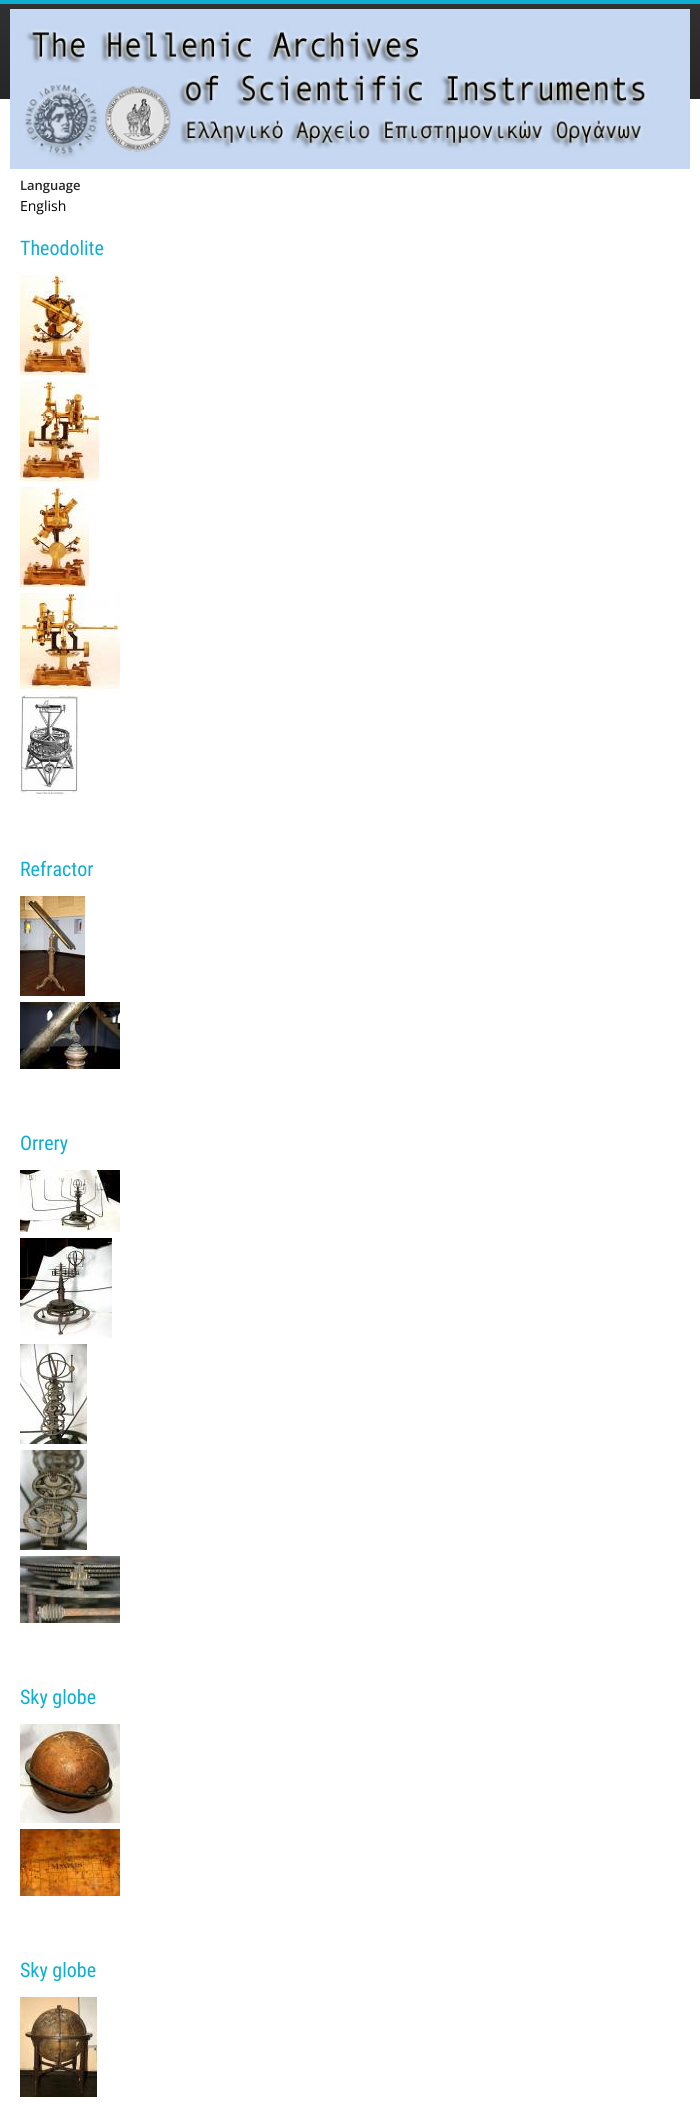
#include <cairo.h>
#include <math.h>
#include <stddef.h>


static void ink(cairo_t *ctx, unsigned color) {
    cairo_set_source_rgb(ctx, (color >> 16) / 255.0, (color >> 8 & 255) / 255.0, (color & 255) / 255.0);
}

static void paste(cairo_t *ctx, const char *path, double x, double y, double w, double h) {
    cairo_surface_t *image = cairo_image_surface_create_from_png(path);
    cairo_save(ctx);
    cairo_set_source_surface(ctx, image, x, y);
    cairo_rectangle(ctx, x, y, w, h);
    cairo_fill(ctx);
    cairo_restore(ctx);
    cairo_surface_destroy(image);
}

int main(void) {
    cairo_surface_t *surface = cairo_image_surface_create(CAIRO_FORMAT_RGB24, 700, 2105);
    cairo_t *ctx = cairo_create(surface);
    cairo_font_options_t *options = cairo_font_options_create();
    cairo_font_options_set_hint_metrics(options, CAIRO_HINT_METRICS_OFF);
    cairo_font_options_set_hint_style(options, CAIRO_HINT_STYLE_NONE);
    cairo_set_font_options(ctx, options);
    cairo_set_miter_limit(ctx, 4);
    cairo_pattern_t *gradient;
    ink(ctx, 0xFFFFFF);
    cairo_paint(ctx);
    ink(ctx, 0x0DAED1);
    cairo_rectangle(ctx, 0, 0, 700, 4);
    cairo_fill(ctx);
    gradient = cairo_pattern_create_linear(350, 99, 350, 4);
    cairo_pattern_add_color_stop_rgba(gradient, 0, 0.149, 0.149, 0.149, 1);
    cairo_pattern_add_color_stop_rgba(gradient, 1, 0.188, 0.188, 0.188, 1);
    cairo_set_source(ctx, gradient);
    cairo_pattern_destroy(gradient);
    cairo_rectangle(ctx, 0, 4, 700, 95);
    cairo_fill(ctx);
    paste(ctx, "media/1.png", 10, 9, 680, 160);
    cairo_select_font_face(ctx, "Open Sans SemiBold", CAIRO_FONT_SLANT_NORMAL, CAIRO_FONT_WEIGHT_NORMAL);
    cairo_set_font_size(ctx, 13);
    ink(ctx, 0x262626);
    cairo_move_to(ctx, 20, 190);
    cairo_show_text(ctx, "Language");
    cairo_select_font_face(ctx, "Open Sans", CAIRO_FONT_SLANT_NORMAL, CAIRO_FONT_WEIGHT_NORMAL);
    cairo_set_font_size(ctx, 14);
    ink(ctx, 0x000000);
    cairo_move_to(ctx, 20, 211);
    cairo_show_text(ctx, "English");
    cairo_select_font_face(ctx, "Roboto Condensed", CAIRO_FONT_SLANT_NORMAL, CAIRO_FONT_WEIGHT_NORMAL);
    cairo_set_font_size(ctx, 20);
    ink(ctx, 0x0DAED1);
    cairo_move_to(ctx, 20, 255);
    cairo_show_text(ctx, "Theodolite");
    paste(ctx, "media/2.png", 20, 275, 69, 100);
    paste(ctx, "media/3.png", 20, 381, 79, 100);
    paste(ctx, "media/4.png", 20, 487, 69, 100);
    paste(ctx, "media/5.png", 20, 593, 100, 96);
    paste(ctx, "media/6.png", 20, 695, 59, 100);
    cairo_move_to(ctx, 20, 876);
    cairo_show_text(ctx, "Refractor");
    paste(ctx, "media/7.png", 20, 896, 65, 100);
    paste(ctx, "media/8.png", 20, 1002, 100, 67);
    cairo_move_to(ctx, 20, 1150);
    cairo_show_text(ctx, "Orrery");
    paste(ctx, "media/9.png", 20, 1170, 100, 62);
    paste(ctx, "media/10.png", 20, 1238, 92, 100);
    paste(ctx, "media/11.png", 20, 1344, 67, 100);
    paste(ctx, "media/12.png", 20, 1450, 67, 100);
    paste(ctx, "media/13.png", 20, 1556, 100, 67);
    cairo_move_to(ctx, 20, 1704);
    cairo_show_text(ctx, "Sky globe");
    paste(ctx, "media/14.png", 20, 1724, 100, 99);
    paste(ctx, "media/15.png", 20, 1829, 100, 67);
    cairo_move_to(ctx, 20, 1977);
    cairo_show_text(ctx, "Sky globe");
    paste(ctx, "media/16.png", 20, 1997, 77, 100);
    cairo_surface_write_to_png(surface, "image.png");
    cairo_font_options_destroy(options);
    cairo_destroy(ctx);
    cairo_surface_destroy(surface);
    return 0;
}
